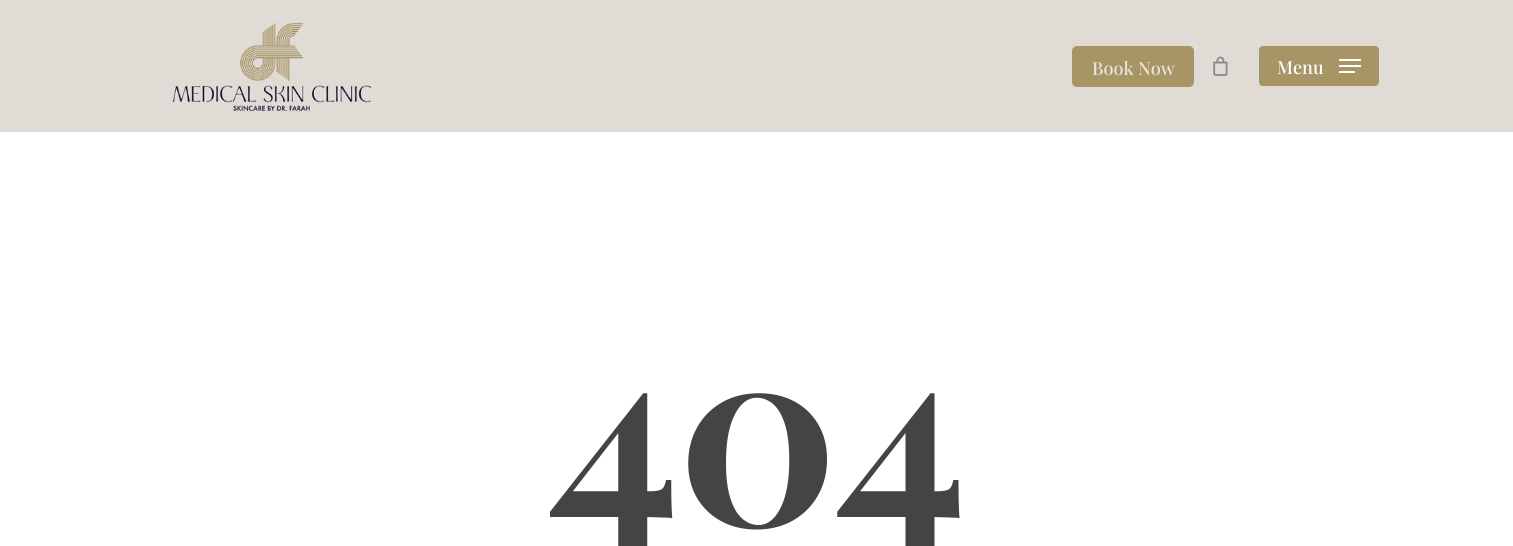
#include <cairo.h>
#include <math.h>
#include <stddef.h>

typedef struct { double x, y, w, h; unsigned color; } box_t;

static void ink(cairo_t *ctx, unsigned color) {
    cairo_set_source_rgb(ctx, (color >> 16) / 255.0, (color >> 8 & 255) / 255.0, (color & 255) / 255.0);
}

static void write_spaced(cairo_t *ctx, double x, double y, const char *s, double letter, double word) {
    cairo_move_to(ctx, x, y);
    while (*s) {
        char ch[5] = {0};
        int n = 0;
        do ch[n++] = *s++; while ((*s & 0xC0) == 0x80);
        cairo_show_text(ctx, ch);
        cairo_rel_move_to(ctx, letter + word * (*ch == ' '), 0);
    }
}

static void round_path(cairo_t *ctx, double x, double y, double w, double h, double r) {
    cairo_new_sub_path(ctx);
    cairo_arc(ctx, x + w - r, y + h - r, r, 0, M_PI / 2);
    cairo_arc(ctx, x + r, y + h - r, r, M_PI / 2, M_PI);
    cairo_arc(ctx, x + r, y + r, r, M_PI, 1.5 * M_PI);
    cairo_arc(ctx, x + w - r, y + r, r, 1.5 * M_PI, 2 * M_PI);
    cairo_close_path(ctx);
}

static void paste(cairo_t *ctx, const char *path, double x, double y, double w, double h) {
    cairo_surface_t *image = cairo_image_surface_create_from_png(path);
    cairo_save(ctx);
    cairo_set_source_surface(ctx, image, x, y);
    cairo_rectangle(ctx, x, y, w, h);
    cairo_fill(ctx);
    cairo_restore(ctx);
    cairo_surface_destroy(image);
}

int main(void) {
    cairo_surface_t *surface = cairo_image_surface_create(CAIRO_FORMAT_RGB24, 1513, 546);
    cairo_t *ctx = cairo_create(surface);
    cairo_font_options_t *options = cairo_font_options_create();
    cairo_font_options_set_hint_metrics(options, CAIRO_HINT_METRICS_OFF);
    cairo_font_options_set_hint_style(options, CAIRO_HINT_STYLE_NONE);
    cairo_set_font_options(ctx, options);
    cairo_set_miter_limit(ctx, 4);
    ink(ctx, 0xFFFFFF);
    cairo_paint(ctx);
    ink(ctx, 0xE0DBD5);
    cairo_rectangle(ctx, 0, 0, 1513, 132);
    cairo_fill(ctx);
    paste(ctx, "media/1.png", 172, 22, 200, 90);
    ink(ctx, 0xA89566);
    round_path(ctx, 1072, 46, 122, 41, 5);
    cairo_fill(ctx);
    cairo_select_font_face(ctx, "Playfair Display Medium", CAIRO_FONT_SLANT_NORMAL, CAIRO_FONT_WEIGHT_NORMAL);
    cairo_set_font_size(ctx, 18);
    ink(ctx, 0xE9E5D9);
    cairo_move_to(ctx, 1092, 75);
    cairo_show_text(ctx, "Book Now");
    paste(ctx, "media/2.png", 1213, 56, 15, 20);
    ink(ctx, 0xA89566);
    round_path(ctx, 1259, 46, 120, 40, 4);
    cairo_fill(ctx);
    ink(ctx, 0xFFFFFF);
    cairo_move_to(ctx, 1277, 74);
    cairo_show_text(ctx, "Menu");
    {
        static const box_t items[] = {
            {1339, 59, 22, 2, 0xFFFFFF},
            {1339, 71, 16, 2, 0xFFFFFF},
            {1339, 65, 22, 2, 0xFFFFFF},
        };
        for (size_t i = 0; i < sizeof items / sizeof *items; i++) {
            ink(ctx, items[i].color);
            cairo_rectangle(ctx, items[i].x, items[i].y, items[i].w, items[i].h);
            cairo_fill(ctx);
        }
    }
    cairo_select_font_face(ctx, "Playfair Display", CAIRO_FONT_SLANT_NORMAL, CAIRO_FONT_WEIGHT_BOLD);
    cairo_set_font_size(ctx, 250);
    ink(ctx, 0x444444);
    write_spaced(ctx, 548, 526, "404", -3, 0);
    cairo_surface_write_to_png(surface, "image.png");
    cairo_font_options_destroy(options);
    cairo_destroy(ctx);
    cairo_surface_destroy(surface);
    return 0;
}
